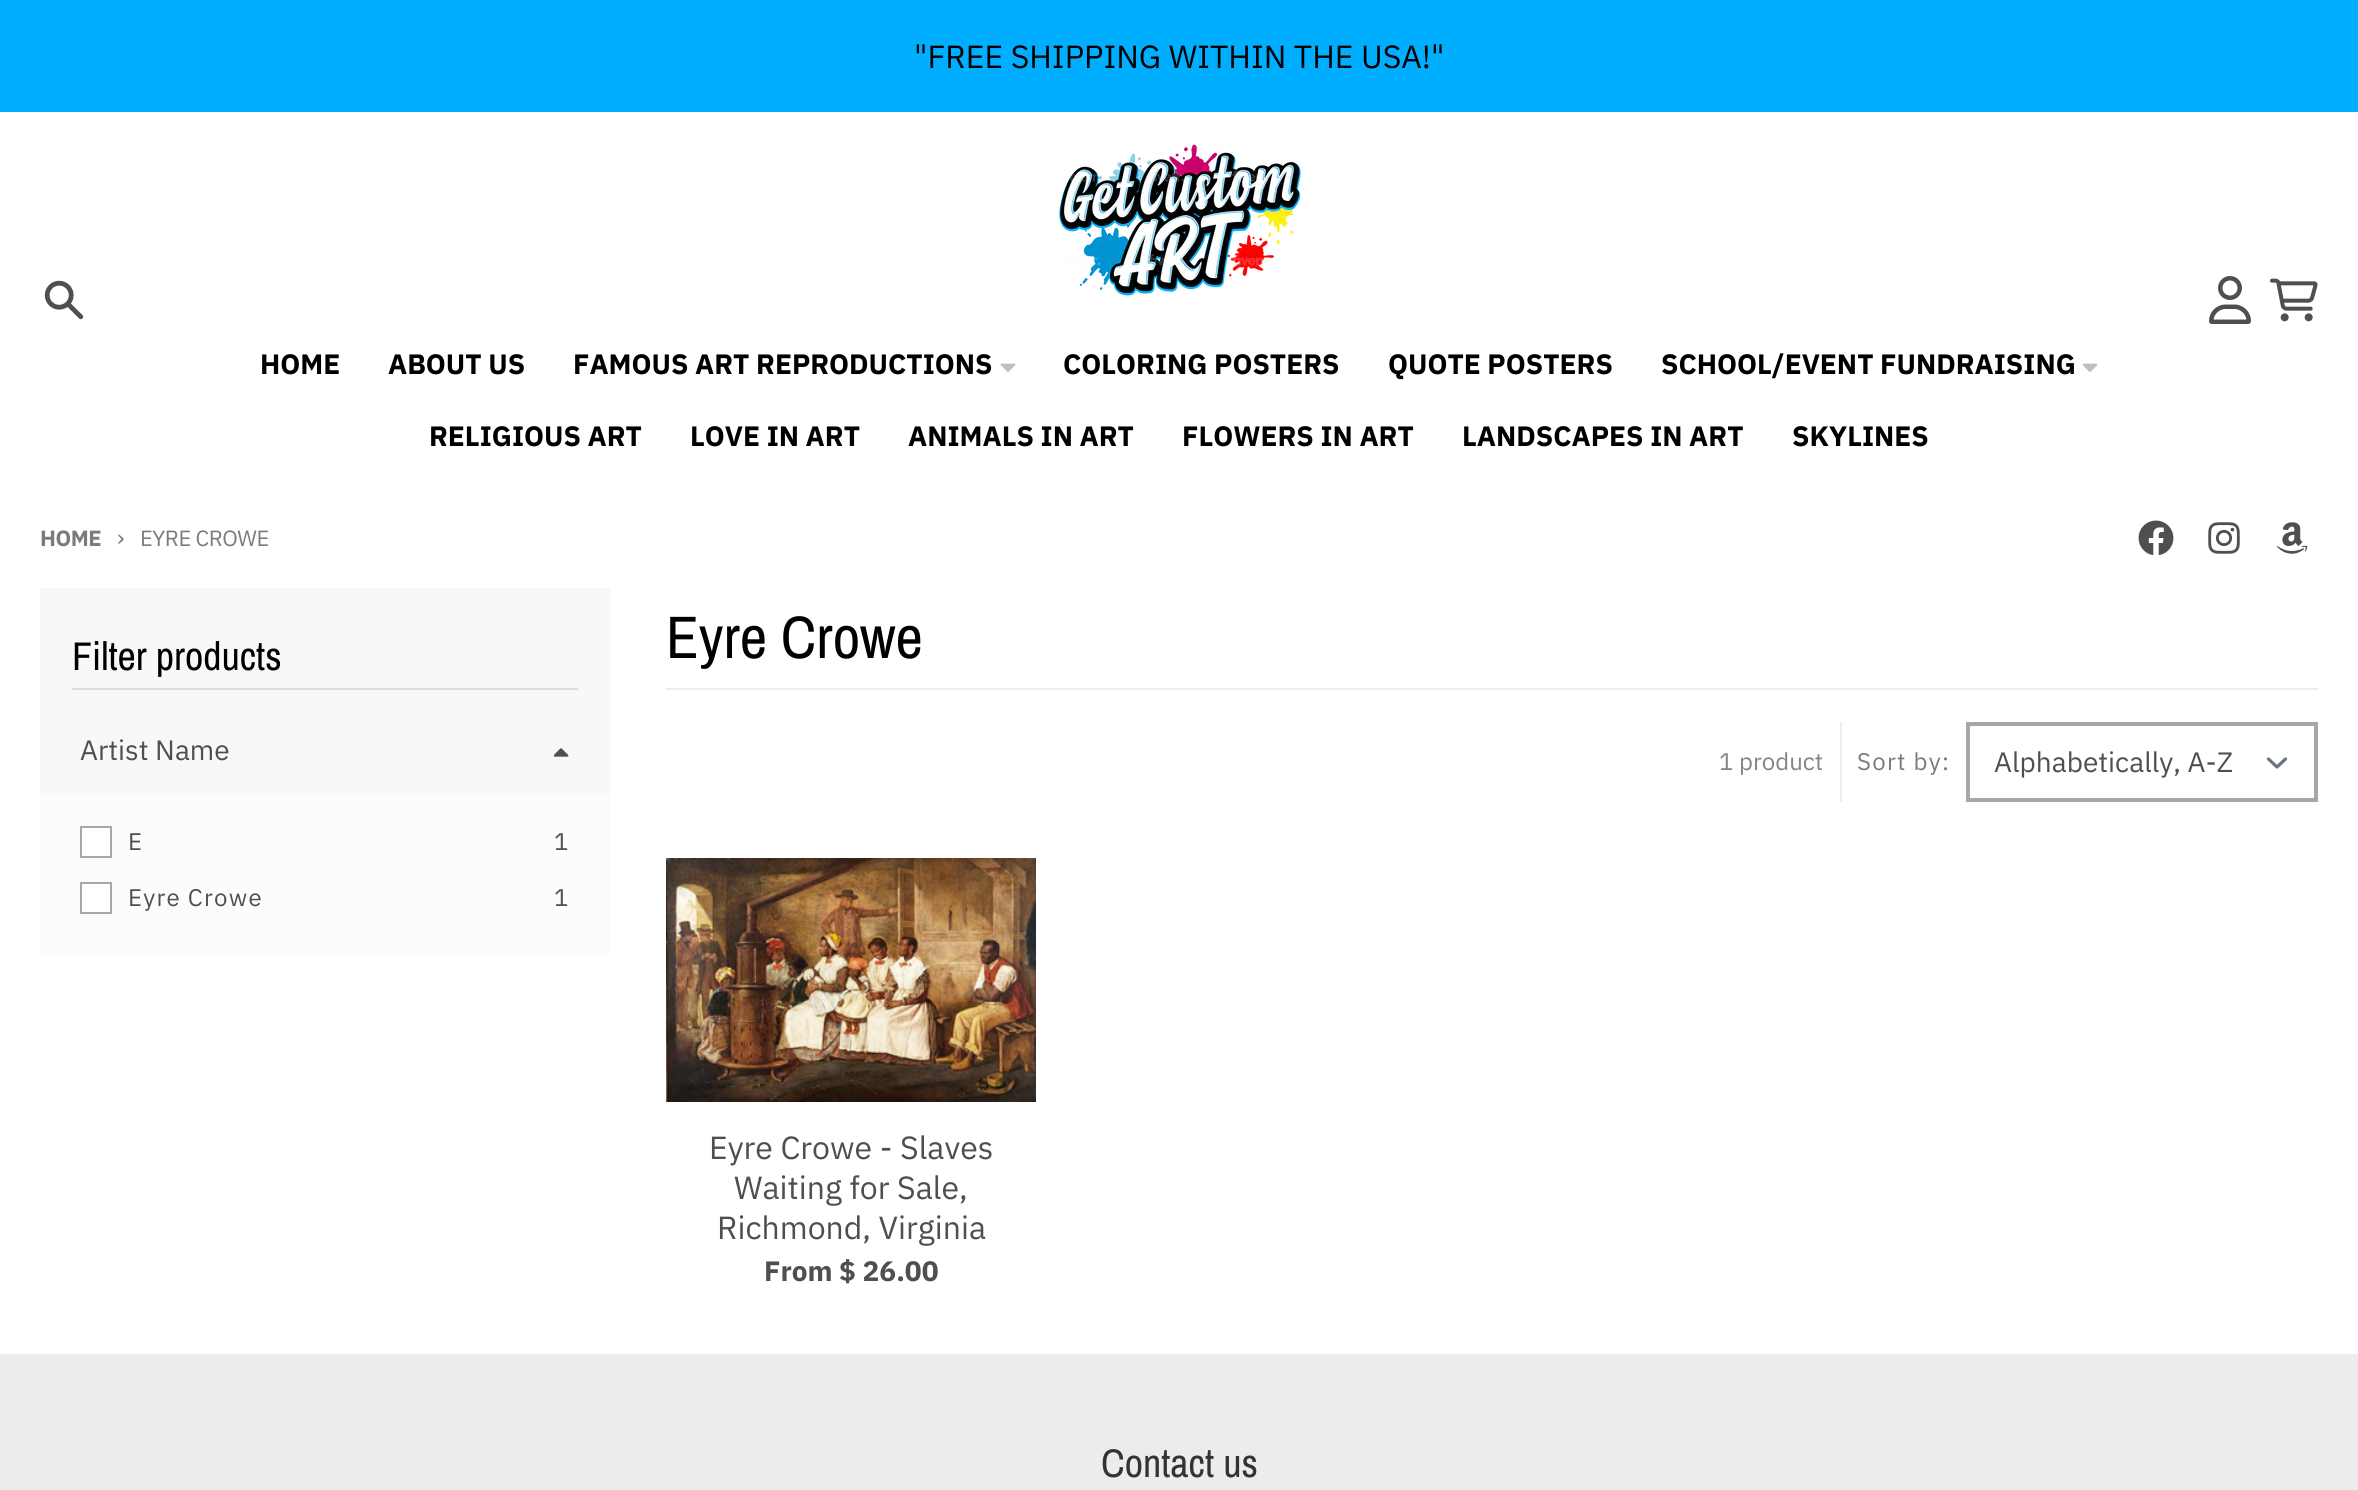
#include <cairo.h>
#include <math.h>
#include <stddef.h>

typedef struct { double x, y; const char *s; } line_t;

static void ink(cairo_t *ctx, unsigned color) {
    cairo_set_source_rgb(ctx, (color >> 16) / 255.0, (color >> 8 & 255) / 255.0, (color & 255) / 255.0);
}

static void write_spaced(cairo_t *ctx, double x, double y, const char *s, double letter, double word) {
    cairo_move_to(ctx, x, y);
    while (*s) {
        char ch[5] = {0};
        int n = 0;
        do ch[n++] = *s++; while ((*s & 0xC0) == 0x80);
        cairo_show_text(ctx, ch);
        cairo_rel_move_to(ctx, letter + word * (*ch == ' '), 0);
    }
}

static void paste(cairo_t *ctx, const char *path, double x, double y, double w, double h) {
    cairo_surface_t *image = cairo_image_surface_create_from_png(path);
    cairo_save(ctx);
    cairo_set_source_surface(ctx, image, x, y);
    cairo_rectangle(ctx, x, y, w, h);
    cairo_fill(ctx);
    cairo_restore(ctx);
    cairo_surface_destroy(image);
}

int main(void) {
    cairo_surface_t *surface = cairo_image_surface_create(CAIRO_FORMAT_RGB24, 2358, 1490);
    cairo_t *ctx = cairo_create(surface);
    cairo_font_options_t *options = cairo_font_options_create();
    cairo_font_options_set_hint_metrics(options, CAIRO_HINT_METRICS_OFF);
    cairo_font_options_set_hint_style(options, CAIRO_HINT_STYLE_NONE);
    cairo_set_font_options(ctx, options);
    cairo_set_miter_limit(ctx, 4);
    ink(ctx, 0xECECEC);
    cairo_paint(ctx);
    ink(ctx, 0x00AEFF);
    cairo_rectangle(ctx, 0, 0, 2358, 112);
    cairo_fill(ctx);
    cairo_select_font_face(ctx, "IBM Plex Sans", CAIRO_FONT_SLANT_NORMAL, CAIRO_FONT_WEIGHT_NORMAL);
    cairo_set_font_size(ctx, 32);
    ink(ctx, 0x000000);
    cairo_move_to(ctx, 914, 68);
    cairo_show_text(ctx, "\"FREE SHIPPING WITHIN THE USA!\"");
    ink(ctx, 0xFFFFFF);
    cairo_rectangle(ctx, 0, 112, 2358, 1242);
    cairo_fill(ctx);
    paste(ctx, "media/1.png", 44, 280, 40, 40);
    paste(ctx, "media/2.png", 2209, 276, 42, 48);
    paste(ctx, "media/3.png", 2270, 278, 48, 44);
    paste(ctx, "media/4.png", 1059, 144, 260, 154);
    cairo_select_font_face(ctx, "IBM Plex Sans", CAIRO_FONT_SLANT_NORMAL, CAIRO_FONT_WEIGHT_BOLD);
    cairo_set_font_size(ctx, 28);
    ink(ctx, 0x000000);
    {
        static const line_t items[] = {
            {260, 374, "HOME"},
            {388, 374, "ABOUT US"},
            {573, 374, "FAMOUS ART REPRODUCTIONS"},
        };
        for (size_t i = 0; i < sizeof items / sizeof *items; i++) {
            cairo_move_to(ctx, items[i].x, items[i].y);
            cairo_show_text(ctx, items[i].s);
        }
    }
    paste(ctx, "media/5.png", 1000, 363, 16, 9);
    {
        static const line_t items[] = {
            {1063, 374, "COLORING POSTERS"},
            {1388, 374, "QUOTE POSTERS"},
            {1661, 374, "SCHOOL/EVENT FUNDRAISING"},
        };
        for (size_t i = 0; i < sizeof items / sizeof *items; i++) {
            cairo_move_to(ctx, items[i].x, items[i].y);
            cairo_show_text(ctx, items[i].s);
        }
    }
    paste(ctx, "media/5.png", 2082, 363, 16, 9);
    {
        static const line_t items[] = {
            {429, 446, "RELIGIOUS ART"},
            {690, 446, "LOVE IN ART"},
            {908, 446, "ANIMALS IN ART"},
            {1182, 446, "FLOWERS IN ART"},
            {1462, 446, "LANDSCAPES IN ART"},
            {1792, 446, "SKYLINES"},
        };
        for (size_t i = 0; i < sizeof items / sizeof *items; i++) {
            cairo_move_to(ctx, items[i].x, items[i].y);
            cairo_show_text(ctx, items[i].s);
        }
    }
    cairo_set_font_size(ctx, 22);
    ink(ctx, 0x7B7B7B);
    write_spaced(ctx, 40, 546, "HOME", -0.5, 0);
    cairo_select_font_face(ctx, "IBM Plex Sans", CAIRO_FONT_SLANT_NORMAL, CAIRO_FONT_WEIGHT_NORMAL);
    cairo_set_font_size(ctx, 24);
    write_spaced(ctx, 117, 546, "›", -0.5, 0);
    cairo_set_font_size(ctx, 22);
    write_spaced(ctx, 140, 546, "EYRE CROWE", -0.5, 0);
    paste(ctx, "media/6.png", 2138, 520, 36, 36);
    paste(ctx, "media/7.png", 2208, 522, 32, 32);
    paste(ctx, "media/8.png", 2276, 522, 32, 32);
    ink(ctx, 0xF8F8F8);
    cairo_rectangle(ctx, 40, 588, 570, 206);
    cairo_fill(ctx);
    ink(ctx, 0xDCDCDC);
    cairo_rectangle(ctx, 72, 688, 506, 2);
    cairo_fill(ctx);
    cairo_select_font_face(ctx, "Archivo Narrow", CAIRO_FONT_SLANT_NORMAL, CAIRO_FONT_WEIGHT_NORMAL);
    cairo_set_font_size(ctx, 40);
    ink(ctx, 0x000000);
    cairo_move_to(ctx, 72, 670);
    cairo_show_text(ctx, "Filter products");
    cairo_select_font_face(ctx, "IBM Plex Sans", CAIRO_FONT_SLANT_NORMAL, CAIRO_FONT_WEIGHT_NORMAL);
    cairo_set_font_size(ctx, 28);
    ink(ctx, 0x4F4F4F);
    cairo_move_to(ctx, 80, 760);
    cairo_show_text(ctx, "Artist Name");
    paste(ctx, "media/9.png", 554, 748, 15, 9);
    ink(ctx, 0xFCFCFC);
    cairo_rectangle(ctx, 40, 794, 570, 160);
    cairo_fill(ctx);
    ink(ctx, 0xFFFFFF);
    cairo_rectangle(ctx, 81, 827, 30, 30);
    cairo_fill_preserve(ctx);
    ink(ctx, 0xA7A7A7);
    cairo_stroke(ctx);
    cairo_set_font_size(ctx, 24);
    ink(ctx, 0x4F4F4F);
    write_spaced(ctx, 128, 850, "E", 1.25, 0);
    write_spaced(ctx, 554, 850, "1", 1.25, 0);
    ink(ctx, 0xFFFFFF);
    cairo_rectangle(ctx, 81, 883, 30, 30);
    cairo_fill_preserve(ctx);
    ink(ctx, 0xA7A7A7);
    cairo_stroke(ctx);
    ink(ctx, 0x4F4F4F);
    write_spaced(ctx, 128, 906, "Eyre Crowe", 1.25, 0);
    write_spaced(ctx, 554, 906, "1", 1.25, 0);
    ink(ctx, 0xEDEDED);
    cairo_rectangle(ctx, 666, 688, 1652, 2);
    cairo_fill(ctx);
    cairo_select_font_face(ctx, "Archivo Narrow", CAIRO_FONT_SLANT_NORMAL, CAIRO_FONT_WEIGHT_NORMAL);
    cairo_set_font_size(ctx, 60);
    ink(ctx, 0x000000);
    cairo_move_to(ctx, 666, 658);
    cairo_show_text(ctx, "Eyre Crowe");
    cairo_select_font_face(ctx, "IBM Plex Sans", CAIRO_FONT_SLANT_NORMAL, CAIRO_FONT_WEIGHT_NORMAL);
    cairo_set_font_size(ctx, 24);
    ink(ctx, 0x848484);
    cairo_move_to(ctx, 1719, 770);
    cairo_show_text(ctx, "1 product");
    ink(ctx, 0xEDEDED);
    cairo_rectangle(ctx, 1840, 722, 2, 80);
    cairo_fill(ctx);
    ink(ctx, 0x7B7B7B);
    write_spaced(ctx, 1857, 770, "Sort by:", 1.25, 0);
    cairo_new_path(ctx);
    cairo_move_to(ctx, 2268.5, 759);
    cairo_line_to(ctx, 2277, 767);
    cairo_line_to(ctx, 2285.5, 759);
    ink(ctx, 0x6B7280);
    cairo_set_line_width(ctx, 3.2);
    cairo_set_line_cap(ctx, CAIRO_LINE_CAP_ROUND);
    cairo_set_line_join(ctx, CAIRO_LINE_JOIN_ROUND);
    cairo_stroke(ctx);
    cairo_rectangle(ctx, 1968, 724, 348, 76);
    ink(ctx, 0xA7A7A7);
    cairo_set_line_width(ctx, 4);
    cairo_set_line_cap(ctx, CAIRO_LINE_CAP_BUTT);
    cairo_set_line_join(ctx, CAIRO_LINE_JOIN_MITER);
    cairo_stroke(ctx);
    cairo_set_font_size(ctx, 28);
    ink(ctx, 0x4F4F4F);
    cairo_move_to(ctx, 1994, 772);
    cairo_show_text(ctx, "Alphabetically, A-Z");
    paste(ctx, "media/10.png", 666, 858, 370, 244);
    cairo_set_font_size(ctx, 32);
    {
        static const line_t items[] = {
            {709, 1159, "Eyre Crowe - Slaves"},
            {734, 1199, "Waiting for Sale,"},
            {717, 1239, "Richmond, Virginia"},
        };
        for (size_t i = 0; i < sizeof items / sizeof *items; i++) {
            cairo_move_to(ctx, items[i].x, items[i].y);
            cairo_show_text(ctx, items[i].s);
        }
    }
    cairo_select_font_face(ctx, "IBM Plex Sans", CAIRO_FONT_SLANT_NORMAL, CAIRO_FONT_WEIGHT_BOLD);
    cairo_set_font_size(ctx, 28);
    cairo_move_to(ctx, 764, 1281);
    cairo_show_text(ctx, "From $ 26.00");
    cairo_select_font_face(ctx, "Archivo Narrow", CAIRO_FONT_SLANT_NORMAL, CAIRO_FONT_WEIGHT_NORMAL);
    cairo_set_font_size(ctx, 40);
    ink(ctx, 0x333333);
    cairo_move_to(ctx, 1101, 1477);
    cairo_show_text(ctx, "Contact us");
    cairo_surface_write_to_png(surface, "image.png");
    cairo_font_options_destroy(options);
    cairo_destroy(ctx);
    cairo_surface_destroy(surface);
    return 0;
}
